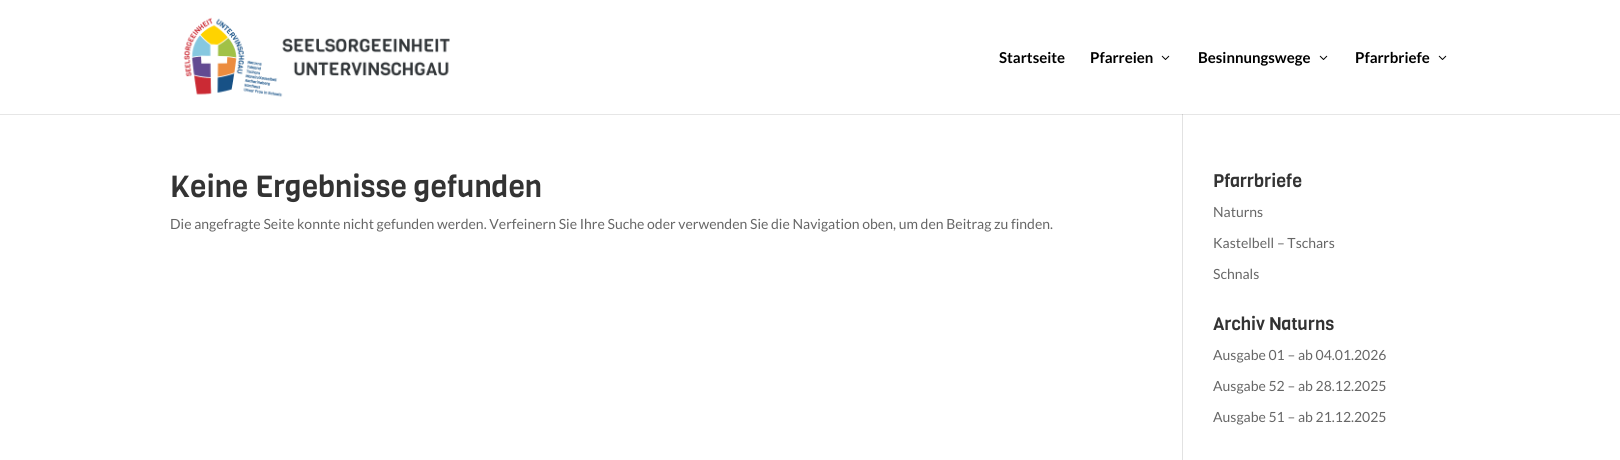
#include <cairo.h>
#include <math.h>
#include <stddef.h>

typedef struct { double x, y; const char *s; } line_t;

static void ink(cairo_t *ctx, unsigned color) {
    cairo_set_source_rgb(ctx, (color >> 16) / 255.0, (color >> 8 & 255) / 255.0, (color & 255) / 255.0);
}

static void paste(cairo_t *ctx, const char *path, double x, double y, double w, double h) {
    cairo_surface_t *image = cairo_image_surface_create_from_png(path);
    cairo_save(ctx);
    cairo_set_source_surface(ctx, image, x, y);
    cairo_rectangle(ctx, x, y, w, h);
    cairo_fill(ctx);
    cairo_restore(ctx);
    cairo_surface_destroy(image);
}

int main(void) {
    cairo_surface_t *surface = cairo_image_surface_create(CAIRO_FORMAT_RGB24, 1620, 460);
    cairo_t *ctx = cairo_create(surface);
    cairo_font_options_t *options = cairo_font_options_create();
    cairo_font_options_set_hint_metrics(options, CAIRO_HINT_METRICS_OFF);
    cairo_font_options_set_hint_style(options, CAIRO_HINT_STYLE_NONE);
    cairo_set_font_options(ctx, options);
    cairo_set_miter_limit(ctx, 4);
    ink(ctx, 0xFFFFFF);
    cairo_paint(ctx);
    ink(ctx, 0xE6E6E6);
    cairo_rectangle(ctx, 0, 114, 1620, 1);
    cairo_fill(ctx);
    paste(ctx, "media/1.png", 183, 17, 267, 80);
    cairo_select_font_face(ctx, "Lato", CAIRO_FONT_SLANT_NORMAL, CAIRO_FONT_WEIGHT_BOLD);
    cairo_set_font_size(ctx, 15);
    ink(ctx, 0x000000);
    cairo_move_to(ctx, 999, 63);
    cairo_show_text(ctx, "Startseite");
    cairo_move_to(ctx, 1090, 63);
    cairo_show_text(ctx, "Pfarreien");
    paste(ctx, "media/2.png", 1161, 55, 9, 5);
    cairo_move_to(ctx, 1198, 63);
    cairo_show_text(ctx, "Besinnungswege");
    paste(ctx, "media/2.png", 1319, 55, 9, 5);
    cairo_move_to(ctx, 1355, 63);
    cairo_show_text(ctx, "Pfarrbriefe");
    paste(ctx, "media/2.png", 1438, 55, 9, 5);
    ink(ctx, 0xE2E2E2);
    cairo_rectangle(ctx, 1182, 114, 1, 346);
    cairo_fill(ctx);
    ink(ctx, 0xCBCBCB);
    cairo_rectangle(ctx, 1182, 114, 1, 1);
    cairo_fill(ctx);
    cairo_select_font_face(ctx, "Viga", CAIRO_FONT_SLANT_NORMAL, CAIRO_FONT_WEIGHT_NORMAL);
    cairo_set_font_size(ctx, 30);
    ink(ctx, 0x333333);
    cairo_move_to(ctx, 170, 197);
    cairo_show_text(ctx, "Keine Ergebnisse gefunden");
    cairo_select_font_face(ctx, "Lato", CAIRO_FONT_SLANT_NORMAL, CAIRO_FONT_WEIGHT_NORMAL);
    cairo_set_font_size(ctx, 14);
    ink(ctx, 0x666666);
    cairo_move_to(ctx, 170, 229);
    cairo_show_text(ctx, "Die angefragte Seite konnte nicht gefunden werden. Verfeinern Sie Ihre Suche oder verwenden Sie die Navigation oben, um den Beitrag zu finden.");
    cairo_select_font_face(ctx, "Viga", CAIRO_FONT_SLANT_NORMAL, CAIRO_FONT_WEIGHT_NORMAL);
    cairo_set_font_size(ctx, 18);
    ink(ctx, 0x333333);
    cairo_move_to(ctx, 1213, 187);
    cairo_show_text(ctx, "Pfarrbriefe");
    cairo_select_font_face(ctx, "Lato", CAIRO_FONT_SLANT_NORMAL, CAIRO_FONT_WEIGHT_NORMAL);
    cairo_set_font_size(ctx, 14);
    ink(ctx, 0x666666);
    {
        static const line_t items[] = {
            {1213, 217, "Naturns"},
            {1213, 248, "Kastelbell – Tschars"},
            {1213, 279, "Schnals"},
        };
        for (size_t i = 0; i < sizeof items / sizeof *items; i++) {
            cairo_move_to(ctx, items[i].x, items[i].y);
            cairo_show_text(ctx, items[i].s);
        }
    }
    cairo_select_font_face(ctx, "Viga", CAIRO_FONT_SLANT_NORMAL, CAIRO_FONT_WEIGHT_NORMAL);
    cairo_set_font_size(ctx, 18);
    ink(ctx, 0x333333);
    cairo_move_to(ctx, 1213, 330);
    cairo_show_text(ctx, "Archiv Naturns");
    cairo_select_font_face(ctx, "Lato", CAIRO_FONT_SLANT_NORMAL, CAIRO_FONT_WEIGHT_NORMAL);
    cairo_set_font_size(ctx, 14);
    ink(ctx, 0x666666);
    {
        static const line_t items[] = {
            {1213, 360, "Ausgabe 01 – ab 04.01.2026"},
            {1213, 391, "Ausgabe 52 – ab 28.12.2025"},
            {1213, 422, "Ausgabe 51 – ab 21.12.2025"},
        };
        for (size_t i = 0; i < sizeof items / sizeof *items; i++) {
            cairo_move_to(ctx, items[i].x, items[i].y);
            cairo_show_text(ctx, items[i].s);
        }
    }
    cairo_surface_write_to_png(surface, "image.png");
    cairo_font_options_destroy(options);
    cairo_destroy(ctx);
    cairo_surface_destroy(surface);
    return 0;
}
